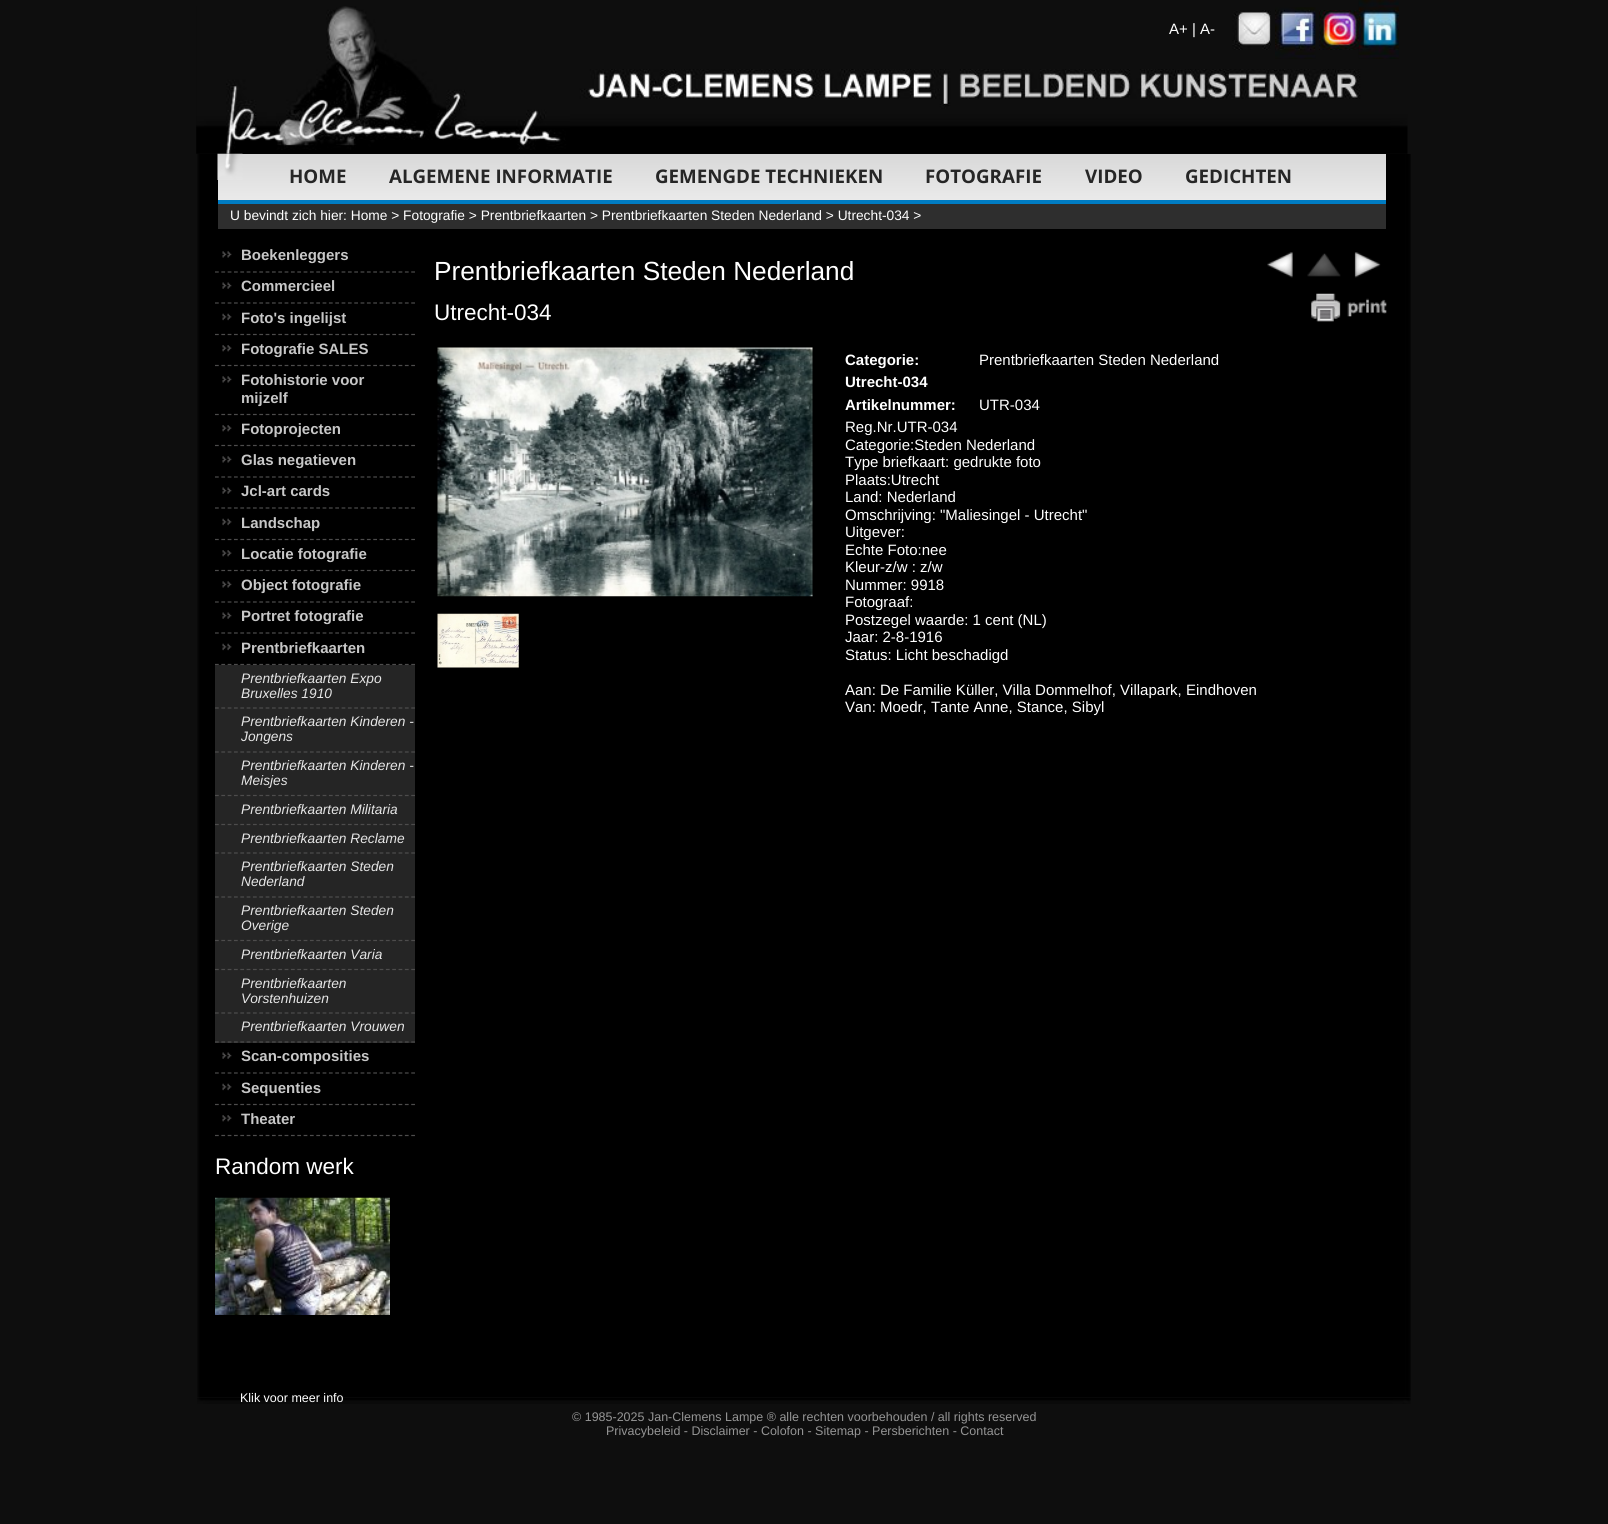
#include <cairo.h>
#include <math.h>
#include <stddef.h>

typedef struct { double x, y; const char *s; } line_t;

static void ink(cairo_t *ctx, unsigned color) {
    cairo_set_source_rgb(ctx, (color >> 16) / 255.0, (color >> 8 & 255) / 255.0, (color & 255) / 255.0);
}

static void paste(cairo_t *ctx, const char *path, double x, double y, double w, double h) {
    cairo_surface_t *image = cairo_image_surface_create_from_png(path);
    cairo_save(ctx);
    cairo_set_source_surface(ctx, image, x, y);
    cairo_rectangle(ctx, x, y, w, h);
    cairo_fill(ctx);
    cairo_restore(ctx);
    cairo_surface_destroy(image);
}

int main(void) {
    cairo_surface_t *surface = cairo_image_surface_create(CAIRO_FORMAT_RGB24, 1608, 1524);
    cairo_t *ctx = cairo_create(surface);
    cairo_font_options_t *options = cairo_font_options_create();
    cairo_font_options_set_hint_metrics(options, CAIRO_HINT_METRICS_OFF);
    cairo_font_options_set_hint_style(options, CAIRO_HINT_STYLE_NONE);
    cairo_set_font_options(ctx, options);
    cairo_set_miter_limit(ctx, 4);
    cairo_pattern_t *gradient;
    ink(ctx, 0x0E0E0E);
    cairo_paint(ctx);
    paste(ctx, "media/1.png", 196, 6, 374, 148);
    cairo_select_font_face(ctx, "Liberation Sans", CAIRO_FONT_SLANT_NORMAL, CAIRO_FONT_WEIGHT_NORMAL);
    cairo_set_font_size(ctx, 15);
    ink(ctx, 0xFFFFFF);
    cairo_move_to(ctx, 1169, 34);
    cairo_show_text(ctx, "A+ | A-");
    paste(ctx, "media/2.png", 1232, 10, 39, 40);
    paste(ctx, "media/3.png", 1275, 7, 41, 52);
    paste(ctx, "media/4.png", 1319, 10, 40, 40);
    paste(ctx, "media/5.png", 1358, 0, 41, 59);
    paste(ctx, "media/6.png", 570, 69, 838, 85);
    paste(ctx, "media/7.png", 197, 154, 1214, 1244);
    gradient = cairo_pattern_create_linear(802, 154, 802, 200);
    cairo_pattern_add_color_stop_rgba(gradient, 0, 0.847, 0.847, 0.847, 1);
    cairo_pattern_add_color_stop_rgba(gradient, 1, 0.918, 0.918, 0.918, 1);
    cairo_set_source(ctx, gradient);
    cairo_pattern_destroy(gradient);
    cairo_rectangle(ctx, 218, 154, 1168, 46);
    cairo_fill(ctx);
    paste(ctx, "media/8.png", 217, 153, 26, 27);
    cairo_select_font_face(ctx, "Open Sans", CAIRO_FONT_SLANT_NORMAL, CAIRO_FONT_WEIGHT_BOLD);
    cairo_set_font_size(ctx, 18.75);
    ink(ctx, 0x262626);
    {
        static const line_t items[] = {
            {289, 183, "HOME"},
            {389, 183, "ALGEMENE INFORMATIE"},
            {655, 183, "GEMENGDE TECHNIEKEN"},
            {925, 183, "FOTOGRAFIE"},
            {1085, 183, "VIDEO"},
            {1185, 183, "GEDICHTEN"},
        };
        for (size_t i = 0; i < sizeof items / sizeof *items; i++) {
            cairo_move_to(ctx, items[i].x, items[i].y);
            cairo_show_text(ctx, items[i].s);
        }
    }
    ink(ctx, 0x2E2E2E);
    cairo_rectangle(ctx, 218, 204, 1168, 25);
    cairo_fill(ctx);
    ink(ctx, 0x007CC3);
    cairo_rectangle(ctx, 218, 200, 1168, 4);
    cairo_fill(ctx);
    cairo_select_font_face(ctx, "Liberation Sans", CAIRO_FONT_SLANT_NORMAL, CAIRO_FONT_WEIGHT_NORMAL);
    cairo_set_font_size(ctx, 13.75);
    ink(ctx, 0xFFFFFF);
    cairo_move_to(ctx, 230, 220);
    cairo_show_text(ctx, "U bevindt zich hier: Home > Fotografie > Prentbriefkaarten > Prentbriefkaarten Steden Nederland > Utrecht-034 >");
    paste(ctx, "media/9.png", 222, 251, 10, 7);
    cairo_new_path(ctx);
    cairo_move_to(ctx, 215, 272);
    cairo_line_to(ctx, 415, 272);
    ink(ctx, 0x4D4C4C);
    cairo_set_line_width(ctx, 1.2);
    cairo_set_dash(ctx, (double[]){3.75, 2.58}, 2, 0);
    cairo_stroke(ctx);
    cairo_select_font_face(ctx, "Liberation Sans", CAIRO_FONT_SLANT_NORMAL, CAIRO_FONT_WEIGHT_BOLD);
    cairo_set_font_size(ctx, 15);
    ink(ctx, 0xC7C7C7);
    cairo_move_to(ctx, 241, 260);
    cairo_show_text(ctx, "Boekenleggers");
    paste(ctx, "media/10.png", 222, 282, 10, 7);
    cairo_new_path(ctx);
    cairo_move_to(ctx, 215, 303);
    cairo_line_to(ctx, 415, 303);
    ink(ctx, 0x4D4C4C);
    cairo_stroke(ctx);
    ink(ctx, 0xC7C7C7);
    cairo_move_to(ctx, 241, 291);
    cairo_show_text(ctx, "Commercieel");
    paste(ctx, "media/11.png", 222, 313, 10, 8);
    cairo_new_path(ctx);
    cairo_move_to(ctx, 215, 334.5);
    cairo_line_to(ctx, 415, 334.5);
    ink(ctx, 0x4D4C4C);
    cairo_stroke(ctx);
    ink(ctx, 0xC7C7C7);
    cairo_move_to(ctx, 241, 323);
    cairo_show_text(ctx, "Foto's ingelijst");
    paste(ctx, "media/12.png", 222, 345, 10, 7);
    cairo_new_path(ctx);
    cairo_move_to(ctx, 215, 365.5);
    cairo_line_to(ctx, 415, 365.5);
    ink(ctx, 0x4D4C4C);
    cairo_stroke(ctx);
    ink(ctx, 0xC7C7C7);
    cairo_move_to(ctx, 241, 354);
    cairo_show_text(ctx, "Fotografie SALES");
    paste(ctx, "media/9.png", 222, 376, 10, 7);
    cairo_new_path(ctx);
    cairo_move_to(ctx, 215, 414.5);
    cairo_line_to(ctx, 415, 414.5);
    ink(ctx, 0x4D4C4C);
    cairo_stroke(ctx);
    ink(ctx, 0xC7C7C7);
    cairo_move_to(ctx, 241, 385);
    cairo_show_text(ctx, "Fotohistorie voor");
    cairo_move_to(ctx, 241, 403);
    cairo_show_text(ctx, "mijzelf");
    paste(ctx, "media/12.png", 222, 425, 10, 7);
    cairo_new_path(ctx);
    cairo_move_to(ctx, 215, 445.5);
    cairo_line_to(ctx, 415, 445.5);
    ink(ctx, 0x4D4C4C);
    cairo_stroke(ctx);
    ink(ctx, 0xC7C7C7);
    cairo_move_to(ctx, 241, 434);
    cairo_show_text(ctx, "Fotoprojecten");
    paste(ctx, "media/9.png", 222, 456, 10, 7);
    cairo_new_path(ctx);
    cairo_move_to(ctx, 215, 477);
    cairo_line_to(ctx, 415, 477);
    ink(ctx, 0x4D4C4C);
    cairo_stroke(ctx);
    ink(ctx, 0xC7C7C7);
    cairo_move_to(ctx, 241, 465);
    cairo_show_text(ctx, "Glas negatieven");
    paste(ctx, "media/10.png", 222, 487, 10, 7);
    cairo_new_path(ctx);
    cairo_move_to(ctx, 215, 508);
    cairo_line_to(ctx, 415, 508);
    ink(ctx, 0x4D4C4C);
    cairo_stroke(ctx);
    ink(ctx, 0xC7C7C7);
    cairo_move_to(ctx, 241, 496);
    cairo_show_text(ctx, "Jcl-art cards");
    paste(ctx, "media/11.png", 222, 518, 10, 8);
    cairo_new_path(ctx);
    cairo_move_to(ctx, 215, 539.5);
    cairo_line_to(ctx, 415, 539.5);
    ink(ctx, 0x4D4C4C);
    cairo_stroke(ctx);
    ink(ctx, 0xC7C7C7);
    cairo_move_to(ctx, 241, 528);
    cairo_show_text(ctx, "Landschap");
    paste(ctx, "media/12.png", 222, 550, 10, 7);
    cairo_new_path(ctx);
    cairo_move_to(ctx, 215, 570.5);
    cairo_line_to(ctx, 415, 570.5);
    ink(ctx, 0x4D4C4C);
    cairo_stroke(ctx);
    ink(ctx, 0xC7C7C7);
    cairo_move_to(ctx, 241, 559);
    cairo_show_text(ctx, "Locatie fotografie");
    paste(ctx, "media/9.png", 222, 581, 10, 7);
    cairo_new_path(ctx);
    cairo_move_to(ctx, 215, 602);
    cairo_line_to(ctx, 415, 602);
    ink(ctx, 0x4D4C4C);
    cairo_stroke(ctx);
    ink(ctx, 0xC7C7C7);
    cairo_move_to(ctx, 241, 590);
    cairo_show_text(ctx, "Object fotografie");
    paste(ctx, "media/10.png", 222, 612, 10, 7);
    cairo_new_path(ctx);
    cairo_move_to(ctx, 215, 633);
    cairo_line_to(ctx, 415, 633);
    ink(ctx, 0x4D4C4C);
    cairo_stroke(ctx);
    ink(ctx, 0xC7C7C7);
    cairo_move_to(ctx, 241, 621);
    cairo_show_text(ctx, "Portret fotografie");
    paste(ctx, "media/11.png", 222, 643, 10, 8);
    cairo_new_path(ctx);
    cairo_move_to(ctx, 215, 664.5);
    cairo_line_to(ctx, 415, 664.5);
    ink(ctx, 0x4D4C4C);
    cairo_stroke(ctx);
    ink(ctx, 0xC7C7C7);
    cairo_move_to(ctx, 241, 653);
    cairo_show_text(ctx, "Prentbriefkaarten");
    ink(ctx, 0x252525);
    cairo_rectangle(ctx, 215, 665, 200, 378);
    cairo_fill(ctx);
    cairo_new_path(ctx);
    cairo_move_to(ctx, 215, 708);
    cairo_line_to(ctx, 415, 708);
    ink(ctx, 0x4D4C4C);
    cairo_stroke(ctx);
    cairo_select_font_face(ctx, "Liberation Sans", CAIRO_FONT_SLANT_ITALIC, CAIRO_FONT_WEIGHT_NORMAL);
    cairo_set_font_size(ctx, 13.75);
    ink(ctx, 0xE6E6E6);
    cairo_move_to(ctx, 241, 683);
    cairo_show_text(ctx, "Prentbriefkaarten Expo");
    cairo_move_to(ctx, 241, 698);
    cairo_show_text(ctx, "Bruxelles 1910");
    cairo_new_path(ctx);
    cairo_move_to(ctx, 215, 752);
    cairo_line_to(ctx, 415, 752);
    ink(ctx, 0x4D4C4C);
    cairo_stroke(ctx);
    ink(ctx, 0xE6E6E6);
    cairo_move_to(ctx, 241, 726);
    cairo_show_text(ctx, "Prentbriefkaarten Kinderen -");
    cairo_move_to(ctx, 241, 741);
    cairo_show_text(ctx, "Jongens");
    cairo_new_path(ctx);
    cairo_move_to(ctx, 215, 795.5);
    cairo_line_to(ctx, 415, 795.5);
    ink(ctx, 0x4D4C4C);
    cairo_stroke(ctx);
    ink(ctx, 0xE6E6E6);
    cairo_move_to(ctx, 241, 770);
    cairo_show_text(ctx, "Prentbriefkaarten Kinderen -");
    cairo_move_to(ctx, 241, 785);
    cairo_show_text(ctx, "Meisjes");
    cairo_new_path(ctx);
    cairo_move_to(ctx, 215, 824.5);
    cairo_line_to(ctx, 415, 824.5);
    ink(ctx, 0x4D4C4C);
    cairo_stroke(ctx);
    ink(ctx, 0xE6E6E6);
    cairo_move_to(ctx, 241, 814);
    cairo_show_text(ctx, "Prentbriefkaarten Militaria");
    cairo_new_path(ctx);
    cairo_move_to(ctx, 215, 853);
    cairo_line_to(ctx, 415, 853);
    ink(ctx, 0x4D4C4C);
    cairo_stroke(ctx);
    ink(ctx, 0xE6E6E6);
    cairo_move_to(ctx, 241, 843);
    cairo_show_text(ctx, "Prentbriefkaarten Reclame");
    cairo_new_path(ctx);
    cairo_move_to(ctx, 215, 897);
    cairo_line_to(ctx, 415, 897);
    ink(ctx, 0x4D4C4C);
    cairo_stroke(ctx);
    ink(ctx, 0xE6E6E6);
    cairo_move_to(ctx, 241, 871);
    cairo_show_text(ctx, "Prentbriefkaarten Steden");
    cairo_move_to(ctx, 241, 886);
    cairo_show_text(ctx, "Nederland");
    cairo_new_path(ctx);
    cairo_move_to(ctx, 215, 940.5);
    cairo_line_to(ctx, 415, 940.5);
    ink(ctx, 0x4D4C4C);
    cairo_stroke(ctx);
    ink(ctx, 0xE6E6E6);
    cairo_move_to(ctx, 241, 915);
    cairo_show_text(ctx, "Prentbriefkaarten Steden");
    cairo_move_to(ctx, 241, 930);
    cairo_show_text(ctx, "Overige");
    cairo_new_path(ctx);
    cairo_move_to(ctx, 215, 969.5);
    cairo_line_to(ctx, 415, 969.5);
    ink(ctx, 0x4D4C4C);
    cairo_stroke(ctx);
    ink(ctx, 0xE6E6E6);
    cairo_move_to(ctx, 241, 959);
    cairo_show_text(ctx, "Prentbriefkaarten Varia");
    cairo_new_path(ctx);
    cairo_move_to(ctx, 215, 1013);
    cairo_line_to(ctx, 415, 1013);
    ink(ctx, 0x4D4C4C);
    cairo_stroke(ctx);
    ink(ctx, 0xE6E6E6);
    cairo_move_to(ctx, 241, 988);
    cairo_show_text(ctx, "Prentbriefkaarten");
    cairo_move_to(ctx, 241, 1003);
    cairo_show_text(ctx, "Vorstenhuizen");
    cairo_new_path(ctx);
    cairo_move_to(ctx, 215, 1042);
    cairo_line_to(ctx, 415, 1042);
    ink(ctx, 0x4D4C4C);
    cairo_stroke(ctx);
    ink(ctx, 0xE6E6E6);
    cairo_move_to(ctx, 241, 1031);
    cairo_show_text(ctx, "Prentbriefkaarten Vrouwen");
    paste(ctx, "media/10.png", 222, 1052, 10, 7);
    cairo_new_path(ctx);
    cairo_move_to(ctx, 215, 1073);
    cairo_line_to(ctx, 415, 1073);
    ink(ctx, 0x4D4C4C);
    cairo_stroke(ctx);
    cairo_select_font_face(ctx, "Liberation Sans", CAIRO_FONT_SLANT_NORMAL, CAIRO_FONT_WEIGHT_BOLD);
    cairo_set_font_size(ctx, 15);
    ink(ctx, 0xC7C7C7);
    cairo_move_to(ctx, 241, 1061);
    cairo_show_text(ctx, "Scan-composities");
    paste(ctx, "media/11.png", 222, 1083, 10, 8);
    cairo_new_path(ctx);
    cairo_move_to(ctx, 215, 1104.5);
    cairo_line_to(ctx, 415, 1104.5);
    ink(ctx, 0x4D4C4C);
    cairo_stroke(ctx);
    ink(ctx, 0xC7C7C7);
    cairo_move_to(ctx, 241, 1093);
    cairo_show_text(ctx, "Sequenties");
    paste(ctx, "media/12.png", 222, 1115, 10, 7);
    cairo_new_path(ctx);
    cairo_move_to(ctx, 215, 1135.5);
    cairo_line_to(ctx, 415, 1135.5);
    ink(ctx, 0x4D4C4C);
    cairo_stroke(ctx);
    ink(ctx, 0xC7C7C7);
    cairo_move_to(ctx, 241, 1124);
    cairo_show_text(ctx, "Theater");
    cairo_select_font_face(ctx, "Liberation Sans", CAIRO_FONT_SLANT_NORMAL, CAIRO_FONT_WEIGHT_NORMAL);
    cairo_set_font_size(ctx, 22.5);
    ink(ctx, 0xFFFFFF);
    cairo_move_to(ctx, 215, 1174);
    cairo_show_text(ctx, "Random werk");
    paste(ctx, "media/13.png", 215, 1197, 175, 118);
    paste(ctx, "media/20.png", 197, 1398, 1214, 6);
    cairo_set_font_size(ctx, 12.5);
    cairo_move_to(ctx, 240, 1402);
    cairo_show_text(ctx, "Klik voor meer info");
    cairo_set_font_size(ctx, 26.25);
    cairo_move_to(ctx, 434, 280);
    cairo_show_text(ctx, "Prentbriefkaarten Steden Nederland");
    paste(ctx, "media/14.png", 1267, 252, 26, 26);
    paste(ctx, "media/15.png", 1307, 253, 34, 24);
    paste(ctx, "media/16.png", 1354, 252, 27, 26);
    paste(ctx, "media/17.png", 1311, 293, 76, 29);
    cairo_set_font_size(ctx, 22.5);
    cairo_move_to(ctx, 434, 320);
    cairo_show_text(ctx, "Utrecht-034");
    paste(ctx, "media/18.png", 437, 347, 376, 250);
    paste(ctx, "media/19.png", 437, 613, 82, 55);
    cairo_select_font_face(ctx, "Liberation Sans", CAIRO_FONT_SLANT_NORMAL, CAIRO_FONT_WEIGHT_BOLD);
    cairo_set_font_size(ctx, 15);
    cairo_move_to(ctx, 845, 365);
    cairo_show_text(ctx, "Categorie:");
    cairo_select_font_face(ctx, "Liberation Sans", CAIRO_FONT_SLANT_NORMAL, CAIRO_FONT_WEIGHT_NORMAL);
    cairo_move_to(ctx, 979, 365);
    cairo_show_text(ctx, "Prentbriefkaarten Steden Nederland");
    cairo_select_font_face(ctx, "Liberation Sans", CAIRO_FONT_SLANT_NORMAL, CAIRO_FONT_WEIGHT_BOLD);
    cairo_move_to(ctx, 845, 387);
    cairo_show_text(ctx, "Utrecht-034");
    cairo_move_to(ctx, 845, 410);
    cairo_show_text(ctx, "Artikelnummer:");
    cairo_select_font_face(ctx, "Liberation Sans", CAIRO_FONT_SLANT_NORMAL, CAIRO_FONT_WEIGHT_NORMAL);
    {
        static const line_t items[] = {
            {979, 410, "UTR-034"},
            {845, 432, "Reg.Nr.UTR-034"},
            {845, 450, "Categorie:Steden Nederland"},
            {845, 467, "Type briefkaart: gedrukte foto"},
            {845, 485, "Plaats:Utrecht"},
            {845, 502, "Land: Nederland"},
            {845, 520, "Omschrijving: \"Maliesingel - Utrecht\""},
            {845, 537, "Uitgever:"},
            {845, 555, "Echte Foto:nee"},
            {845, 572, "Kleur-z/w : z/w"},
            {845, 590, "Nummer: 9918"},
            {845, 607, "Fotograaf:"},
            {845, 625, "Postzegel waarde: 1 cent (NL)"},
            {845, 642, "Jaar: 2-8-1916"},
            {845, 660, "Status: Licht beschadigd"},
            {845, 695, "Aan: De Familie Küller, Villa Dommelhof, Villapark, Eindhoven"},
            {845, 712, "Van: Moedr, Tante Anne, Stance, Sibyl"},
        };
        for (size_t i = 0; i < sizeof items / sizeof *items; i++) {
            cairo_move_to(ctx, items[i].x, items[i].y);
            cairo_show_text(ctx, items[i].s);
        }
    }
    cairo_set_font_size(ctx, 12.5);
    ink(ctx, 0x959595);
    cairo_move_to(ctx, 572, 1421);
    cairo_show_text(ctx, "© 1985-2025 Jan-Clemens Lampe ® alle rechten voorbehouden / all rights reserved");
    cairo_move_to(ctx, 606, 1435);
    cairo_show_text(ctx, "Privacybeleid - Disclaimer - Colofon - Sitemap - Persberichten - Contact");
    cairo_surface_write_to_png(surface, "image.png");
    cairo_font_options_destroy(options);
    cairo_destroy(ctx);
    cairo_surface_destroy(surface);
    return 0;
}
